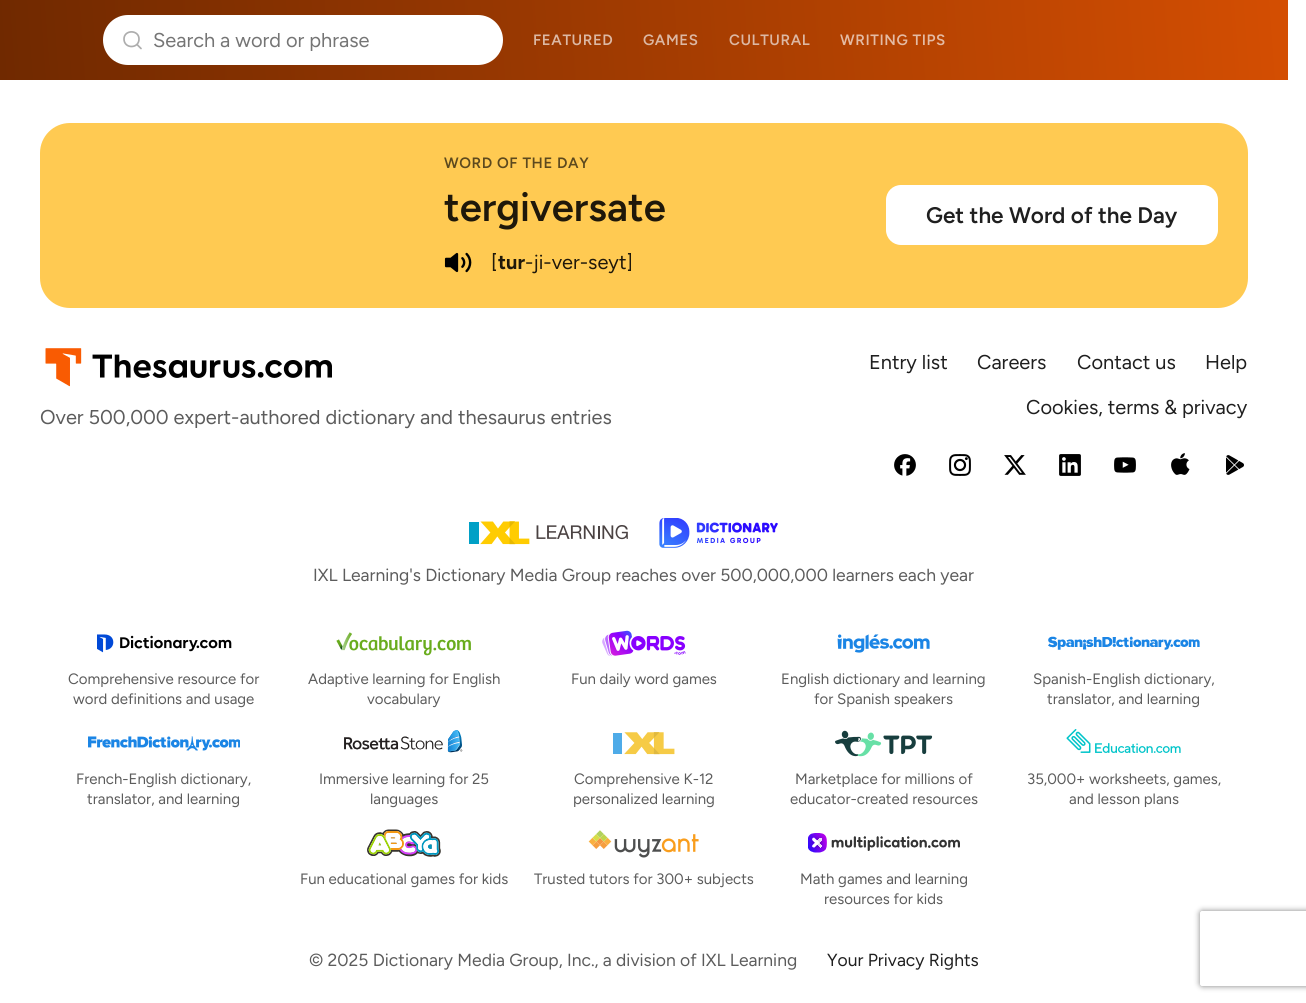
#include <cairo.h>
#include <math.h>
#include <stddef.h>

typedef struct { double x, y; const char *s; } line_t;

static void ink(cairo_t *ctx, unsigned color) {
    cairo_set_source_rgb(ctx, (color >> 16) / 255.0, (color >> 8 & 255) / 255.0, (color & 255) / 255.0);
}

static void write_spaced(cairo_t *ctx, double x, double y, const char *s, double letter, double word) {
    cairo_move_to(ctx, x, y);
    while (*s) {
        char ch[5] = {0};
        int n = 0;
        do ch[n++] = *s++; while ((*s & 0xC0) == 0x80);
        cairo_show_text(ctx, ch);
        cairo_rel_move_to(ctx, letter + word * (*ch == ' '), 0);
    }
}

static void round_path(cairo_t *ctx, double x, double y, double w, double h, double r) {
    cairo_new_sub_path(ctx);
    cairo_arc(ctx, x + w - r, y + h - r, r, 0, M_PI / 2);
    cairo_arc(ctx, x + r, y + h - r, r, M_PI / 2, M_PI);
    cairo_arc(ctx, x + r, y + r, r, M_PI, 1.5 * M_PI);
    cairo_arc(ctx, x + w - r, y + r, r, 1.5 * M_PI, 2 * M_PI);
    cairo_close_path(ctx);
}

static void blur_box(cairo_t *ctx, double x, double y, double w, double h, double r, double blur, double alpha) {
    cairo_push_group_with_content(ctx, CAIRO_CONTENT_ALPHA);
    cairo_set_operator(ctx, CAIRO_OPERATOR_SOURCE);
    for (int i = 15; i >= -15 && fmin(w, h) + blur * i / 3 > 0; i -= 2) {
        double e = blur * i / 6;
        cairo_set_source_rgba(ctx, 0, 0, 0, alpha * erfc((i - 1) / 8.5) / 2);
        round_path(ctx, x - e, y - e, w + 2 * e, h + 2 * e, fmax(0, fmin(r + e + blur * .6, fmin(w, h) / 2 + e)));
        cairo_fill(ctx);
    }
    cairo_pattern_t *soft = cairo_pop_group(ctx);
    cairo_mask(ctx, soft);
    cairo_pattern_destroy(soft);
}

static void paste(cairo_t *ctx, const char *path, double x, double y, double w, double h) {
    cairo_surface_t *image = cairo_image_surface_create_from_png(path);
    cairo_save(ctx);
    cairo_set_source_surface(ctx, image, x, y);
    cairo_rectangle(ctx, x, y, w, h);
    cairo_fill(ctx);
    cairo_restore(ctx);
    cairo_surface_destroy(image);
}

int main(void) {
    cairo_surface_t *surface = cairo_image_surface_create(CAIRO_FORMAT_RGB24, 1306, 1003);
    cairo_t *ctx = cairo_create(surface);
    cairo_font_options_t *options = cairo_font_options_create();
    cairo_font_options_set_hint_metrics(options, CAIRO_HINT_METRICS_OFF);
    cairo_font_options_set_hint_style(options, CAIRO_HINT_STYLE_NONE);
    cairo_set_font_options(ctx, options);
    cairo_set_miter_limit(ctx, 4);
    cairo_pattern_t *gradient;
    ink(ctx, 0xFFFFFF);
    cairo_paint(ctx);
    gradient = cairo_pattern_create_linear(0.5, 87, 1287, -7.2);
    cairo_pattern_add_color_stop_rgba(gradient, 0, 0.439, 0.161, 0, 1);
    cairo_pattern_add_color_stop_rgba(gradient, 1, 0.831, 0.306, 0.008, 1);
    cairo_set_source(ctx, gradient);
    cairo_pattern_destroy(gradient);
    cairo_rectangle(ctx, 0, 0, 1288, 80);
    cairo_fill(ctx);
    ink(ctx, 0xFFFFFF);
    round_path(ctx, 103, 15, 400, 50, 25);
    cairo_fill(ctx);
    cairo_new_path(ctx);
    cairo_move_to(ctx, 141, 48.5);
    cairo_line_to(ctx, 137, 44.5);
    cairo_move_to(ctx, 139, 39);
    cairo_curve_to(ctx, 139, 49, 124, 49, 124, 39);
    cairo_curve_to(ctx, 124, 29.5, 139, 29.5, 139, 39);
    cairo_close_path(ctx);
    ink(ctx, 0xADADAD);
    cairo_set_line_width(ctx, 1.7);
    cairo_set_line_cap(ctx, CAIRO_LINE_CAP_ROUND);
    cairo_set_line_join(ctx, CAIRO_LINE_JOIN_ROUND);
    cairo_stroke(ctx);
    cairo_select_font_face(ctx, "Figtree", CAIRO_FONT_SLANT_NORMAL, CAIRO_FONT_WEIGHT_NORMAL);
    cairo_set_font_size(ctx, 20);
    ink(ctx, 0x757575);
    cairo_move_to(ctx, 153, 47);
    cairo_show_text(ctx, "Search a word or phrase");
    cairo_select_font_face(ctx, "Figtree SemiBold", CAIRO_FONT_SLANT_NORMAL, CAIRO_FONT_WEIGHT_NORMAL);
    cairo_set_font_size(ctx, 15);
    ink(ctx, 0xDCB8A4);
    {
        static const line_t items[] = {
            {533, 45, "FEATURED"},
            {643, 45, "GAMES"},
            {729, 45, "CULTURAL"},
        };
        for (size_t i = 0; i < sizeof items / sizeof *items; i++) {
            write_spaced(ctx, items[i].x, items[i].y, items[i].s, 0.6, 0);
        }
    }
    ink(ctx, 0xE4BBA4);
    write_spaced(ctx, 840, 45, "WRITING TIPS", 0.6, 0);
    ink(ctx, 0xFFCA52);
    round_path(ctx, 40, 123, 1208, 185, 30);
    cairo_fill(ctx);
    ink(ctx, 0x5C491E);
    write_spaced(ctx, 444, 168, "WORD OF THE DAY", 0.6, 0);
    cairo_set_font_size(ctx, 40);
    ink(ctx, 0x1F180A);
    cairo_move_to(ctx, 444, 221);
    cairo_show_text(ctx, "tergiversate");
    paste(ctx, "media/1.png", 444, 252, 28, 21);
    cairo_select_font_face(ctx, "Figtree", CAIRO_FONT_SLANT_NORMAL, CAIRO_FONT_WEIGHT_NORMAL);
    cairo_set_font_size(ctx, 20);
    cairo_move_to(ctx, 491, 269);
    cairo_show_text(ctx, "[");
    cairo_select_font_face(ctx, "Figtree", CAIRO_FONT_SLANT_NORMAL, CAIRO_FONT_WEIGHT_BOLD);
    cairo_move_to(ctx, 498, 269);
    cairo_show_text(ctx, "tur");
    cairo_select_font_face(ctx, "Figtree", CAIRO_FONT_SLANT_NORMAL, CAIRO_FONT_WEIGHT_NORMAL);
    cairo_move_to(ctx, 525, 269);
    cairo_show_text(ctx, "-ji-ver-seyt]");
    ink(ctx, 0xFFFFFF);
    round_path(ctx, 886, 185, 332, 60, 15);
    cairo_fill(ctx);
    cairo_select_font_face(ctx, "Figtree SemiBold", CAIRO_FONT_SLANT_NORMAL, CAIRO_FONT_WEIGHT_NORMAL);
    cairo_set_font_size(ctx, 22.5);
    ink(ctx, 0x1F1F1F);
    cairo_move_to(ctx, 926, 223);
    cairo_show_text(ctx, "Get the Word of the Day");
    paste(ctx, "media/2.png", 45, 348, 287, 39);
    cairo_select_font_face(ctx, "Figtree", CAIRO_FONT_SLANT_NORMAL, CAIRO_FONT_WEIGHT_NORMAL);
    cairo_set_font_size(ctx, 20);
    ink(ctx, 0x5C5C5C);
    cairo_move_to(ctx, 40, 424);
    cairo_show_text(ctx, "Over 500,000 expert-authored dictionary and thesaurus entries");
    ink(ctx, 0x1F1F1F);
    {
        static const line_t items[] = {
            {869, 369, "Entry list"},
            {977, 369, "Careers"},
            {1077, 369, "Contact us"},
            {1205, 369, "Help"},
            {1026, 414, "Cookies, terms & privacy"},
        };
        for (size_t i = 0; i < sizeof items / sizeof *items; i++) {
            cairo_move_to(ctx, items[i].x, items[i].y);
            cairo_show_text(ctx, items[i].s);
        }
    }
    paste(ctx, "media/3.png", 894, 454, 22, 22);
    paste(ctx, "media/4.png", 949, 454, 22, 22);
    paste(ctx, "media/5.png", 1004, 455, 22, 20);
    paste(ctx, "media/6.png", 1059, 454, 22, 22);
    paste(ctx, "media/7.png", 1114, 457, 22, 16);
    paste(ctx, "media/8.png", 1171, 453, 19, 22);
    paste(ctx, "media/9.png", 1226, 455, 18, 20);
    paste(ctx, "media/10.png", 469, 521, 159, 24);
    paste(ctx, "media/11.png", 659, 518, 119, 30);
    cairo_set_font_size(ctx, 17.5);
    ink(ctx, 0x5C5C5C);
    cairo_move_to(ctx, 313, 581);
    cairo_show_text(ctx, "IXL Learning's Dictionary Media Group reaches over 500,000,000 learners each year");
    paste(ctx, "media/12.png", 97, 634, 135, 19);
    cairo_set_font_size(ctx, 15);
    cairo_move_to(ctx, 68, 684);
    cairo_show_text(ctx, "Comprehensive resource for");
    cairo_move_to(ctx, 73, 704);
    cairo_show_text(ctx, "word definitions and usage");
    paste(ctx, "media/13.png", 336, 632, 135, 24);
    cairo_move_to(ctx, 308, 684);
    cairo_show_text(ctx, "Adaptive learning for English");
    cairo_move_to(ctx, 367, 704);
    cairo_show_text(ctx, "vocabulary");
    paste(ctx, "media/14.png", 602, 630, 84, 27);
    cairo_move_to(ctx, 571, 684);
    cairo_show_text(ctx, "Fun daily word games");
    paste(ctx, "media/15.png", 837, 634, 93, 19);
    cairo_move_to(ctx, 781, 684);
    cairo_show_text(ctx, "English dictionary and learning");
    cairo_move_to(ctx, 814, 704);
    cairo_show_text(ctx, "for Spanish speakers");
    paste(ctx, "media/16.png", 1048, 636, 152, 14);
    cairo_move_to(ctx, 1033, 684);
    cairo_show_text(ctx, "Spanish-English dictionary,");
    cairo_move_to(ctx, 1047, 704);
    cairo_show_text(ctx, "translator, and learning");
    paste(ctx, "media/17.png", 88, 736, 152, 15);
    cairo_move_to(ctx, 76, 784);
    cairo_show_text(ctx, "French-English dictionary,");
    cairo_move_to(ctx, 87, 804);
    cairo_show_text(ctx, "translator, and learning");
    paste(ctx, "media/18.png", 344, 730, 119, 23);
    cairo_move_to(ctx, 319, 784);
    cairo_show_text(ctx, "Immersive learning for 25");
    cairo_move_to(ctx, 370, 804);
    cairo_show_text(ctx, "languages");
    paste(ctx, "media/19.png", 613, 732, 62, 23);
    cairo_move_to(ctx, 574, 784);
    cairo_show_text(ctx, "Comprehensive K-12");
    cairo_move_to(ctx, 573, 804);
    cairo_show_text(ctx, "personalized learning");
    paste(ctx, "media/20.png", 835, 730, 98, 27);
    cairo_move_to(ctx, 795, 784);
    cairo_show_text(ctx, "Marketplace for millions of");
    cairo_move_to(ctx, 790, 804);
    cairo_show_text(ctx, "educator-created resources");
    paste(ctx, "media/21.png", 1066, 729, 115, 24);
    cairo_move_to(ctx, 1027, 784);
    cairo_show_text(ctx, "35,000+ worksheets, games,");
    cairo_move_to(ctx, 1069, 804);
    cairo_show_text(ctx, "and lesson plans");
    paste(ctx, "media/22.png", 367, 829, 74, 28);
    cairo_move_to(ctx, 300, 884);
    cairo_show_text(ctx, "Fun educational games for kids");
    paste(ctx, "media/23.png", 588, 830, 111, 28);
    cairo_move_to(ctx, 534, 884);
    cairo_show_text(ctx, "Trusted tutors for 300+ subjects");
    paste(ctx, "media/24.png", 808, 833, 152, 20);
    cairo_move_to(ctx, 800, 884);
    cairo_show_text(ctx, "Math games and learning");
    cairo_move_to(ctx, 824, 904);
    cairo_show_text(ctx, "resources for kids");
    cairo_set_font_size(ctx, 17.5);
    cairo_move_to(ctx, 309, 966);
    cairo_show_text(ctx, "© 2025 Dictionary Media Group, Inc., a division of IXL Learning");
    ink(ctx, 0x1F1F1F);
    cairo_move_to(ctx, 827, 966);
    cairo_show_text(ctx, "Your Privacy Rights");
    cairo_save(ctx);
    cairo_set_fill_rule(ctx, CAIRO_FILL_RULE_EVEN_ODD);
    cairo_new_path(ctx);
    cairo_move_to(ctx, 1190, 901);
    cairo_line_to(ctx, 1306, 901);
    cairo_line_to(ctx, 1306, 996);
    cairo_line_to(ctx, 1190, 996);
    cairo_close_path(ctx);
    cairo_move_to(ctx, 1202.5, 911);
    cairo_line_to(ctx, 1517.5, 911);
    cairo_curve_to(ctx, 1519, 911, 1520, 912, 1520, 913.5);
    cairo_line_to(ctx, 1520, 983.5);
    cairo_curve_to(ctx, 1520, 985, 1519, 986, 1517.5, 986);
    cairo_line_to(ctx, 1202.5, 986);
    cairo_curve_to(ctx, 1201, 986, 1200, 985, 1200, 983.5);
    cairo_line_to(ctx, 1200, 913.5);
    cairo_curve_to(ctx, 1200, 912, 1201, 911, 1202.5, 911);
    cairo_close_path(ctx);
    cairo_clip(ctx);
    ink(ctx, 0x808080);
    blur_box(ctx, 1200, 911, 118, 75, 2.5, 3, 1);
    cairo_restore(ctx);
    cairo_surface_write_to_png(surface, "image.png");
    cairo_font_options_destroy(options);
    cairo_destroy(ctx);
    cairo_surface_destroy(surface);
    return 0;
}
